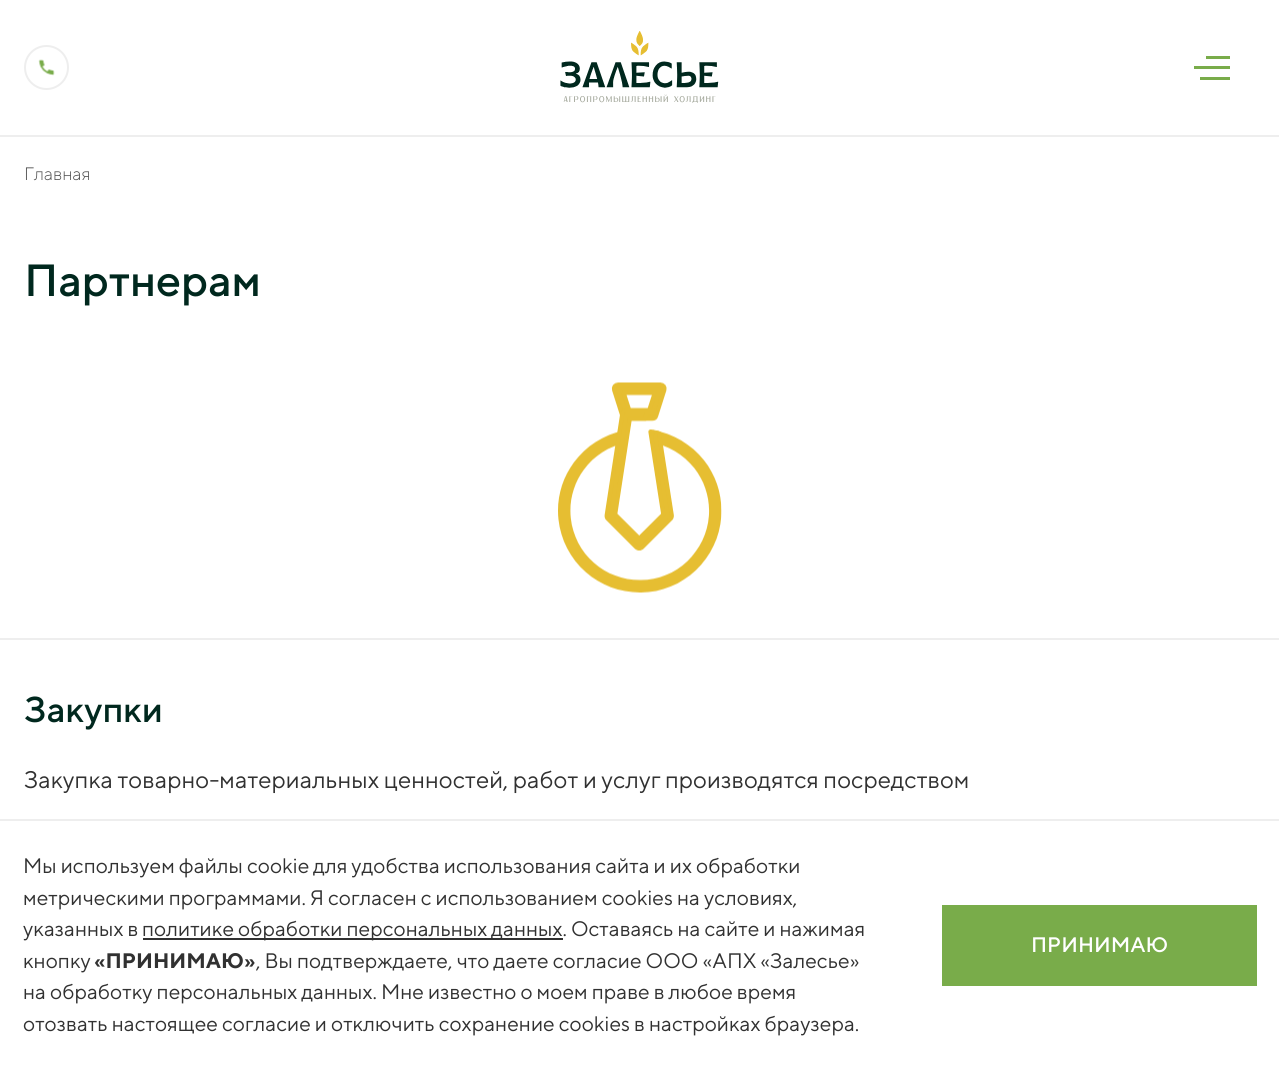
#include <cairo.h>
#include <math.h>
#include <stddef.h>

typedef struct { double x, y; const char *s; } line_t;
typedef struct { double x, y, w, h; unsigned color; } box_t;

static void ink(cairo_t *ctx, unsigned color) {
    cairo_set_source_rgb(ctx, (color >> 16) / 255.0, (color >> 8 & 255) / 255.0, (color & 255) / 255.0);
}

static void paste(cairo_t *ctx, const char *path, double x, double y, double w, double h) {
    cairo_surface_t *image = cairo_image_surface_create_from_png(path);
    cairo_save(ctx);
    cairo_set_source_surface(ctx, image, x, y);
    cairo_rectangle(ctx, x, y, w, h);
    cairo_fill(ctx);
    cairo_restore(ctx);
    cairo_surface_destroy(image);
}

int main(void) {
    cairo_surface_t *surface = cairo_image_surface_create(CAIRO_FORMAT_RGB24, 1279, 1069);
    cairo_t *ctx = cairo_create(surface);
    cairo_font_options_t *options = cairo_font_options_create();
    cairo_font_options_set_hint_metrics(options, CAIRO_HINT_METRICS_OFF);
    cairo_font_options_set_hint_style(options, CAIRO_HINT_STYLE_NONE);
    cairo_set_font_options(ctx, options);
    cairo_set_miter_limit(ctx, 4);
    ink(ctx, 0xFFFFFF);
    cairo_paint(ctx);
    ink(ctx, 0xEEEEEE);
    cairo_rectangle(ctx, 0, 135, 1279, 2);
    cairo_fill(ctx);
    cairo_arc(ctx, 46.5, 67.5, 21.5, 0, 2 * M_PI);
    cairo_stroke(ctx);
    paste(ctx, "media/1.png", 38, 59, 17, 17);
    paste(ctx, "media/2.png", 560, 31, 159, 72);
    {
        static const box_t items[] = {
            {1194, 66, 36, 3, 0x79AC4A},
            {1206, 56, 24, 3, 0x79AC4A},
            {1200, 77, 30, 3, 0x79AC4A},
        };
        for (size_t i = 0; i < sizeof items / sizeof *items; i++) {
            ink(ctx, items[i].color);
            cairo_rectangle(ctx, items[i].x, items[i].y, items[i].w, items[i].h);
            cairo_fill(ctx);
        }
    }
    cairo_select_font_face(ctx, "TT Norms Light", CAIRO_FONT_SLANT_NORMAL, CAIRO_FONT_WEIGHT_NORMAL);
    cairo_set_font_size(ctx, 18);
    ink(ctx, 0x505050);
    cairo_move_to(ctx, 24, 180);
    cairo_show_text(ctx, "Главная");
    cairo_select_font_face(ctx, "TT Norms Medium", CAIRO_FONT_SLANT_NORMAL, CAIRO_FONT_WEIGHT_NORMAL);
    cairo_set_font_size(ctx, 45);
    ink(ctx, 0x00281E);
    cairo_move_to(ctx, 24, 296);
    cairo_show_text(ctx, "Партнерам");
    paste(ctx, "media/3.png", 558, 382, 164, 211);
    ink(ctx, 0xEEEEEE);
    cairo_rectangle(ctx, 0, 638, 1279, 2);
    cairo_fill(ctx);
    cairo_set_font_size(ctx, 36);
    ink(ctx, 0x00281E);
    cairo_move_to(ctx, 24, 722);
    cairo_show_text(ctx, "Закупки");
    cairo_select_font_face(ctx, "TT Norms", CAIRO_FONT_SLANT_NORMAL, CAIRO_FONT_WEIGHT_NORMAL);
    cairo_set_font_size(ctx, 24);
    ink(ctx, 0x313131);
    cairo_move_to(ctx, 24, 788);
    cairo_show_text(ctx, "Закупка товарно-материальных ценностей, работ и услуг производятся посредством");
    ink(ctx, 0xEEEEEE);
    cairo_rectangle(ctx, 0, 819, 1279, 2);
    cairo_fill(ctx);
    cairo_set_font_size(ctx, 21);
    ink(ctx, 0x313131);
    {
        static const line_t items[] = {
            {23, 873, "Мы используем файлы cookie для удобства использования сайта и их обработки"},
            {23, 905, "метрическими программами. Я согласен с использованием cookies на условиях,"},
            {23, 936, "указанных в"},
        };
        for (size_t i = 0; i < sizeof items / sizeof *items; i++) {
            cairo_move_to(ctx, items[i].x, items[i].y);
            cairo_show_text(ctx, items[i].s);
        }
    }
    cairo_rectangle(ctx, 143, 938, 420, 2);
    cairo_fill(ctx);
    cairo_move_to(ctx, 142, 936);
    cairo_show_text(ctx, "политике обработки персональных данных. Оставаясь на сайте и нажимая");
    cairo_move_to(ctx, 23, 968);
    cairo_show_text(ctx, "кнопку");
    cairo_select_font_face(ctx, "TT Norms", CAIRO_FONT_SLANT_NORMAL, CAIRO_FONT_WEIGHT_BOLD);
    cairo_move_to(ctx, 94, 968);
    cairo_show_text(ctx, "«ПРИНИМАЮ»");
    cairo_select_font_face(ctx, "TT Norms", CAIRO_FONT_SLANT_NORMAL, CAIRO_FONT_WEIGHT_NORMAL);
    {
        static const line_t items[] = {
            {256, 968, ", Вы подтверждаете, что даете согласие ООО «АПХ «Залесье»"},
            {23, 999, "на обработку персональных данных. Мне известно о моем праве в любое время"},
            {23, 1031, "отозвать настоящее согласие и отключить сохранение cookies в настройках браузера."},
        };
        for (size_t i = 0; i < sizeof items / sizeof *items; i++) {
            cairo_move_to(ctx, items[i].x, items[i].y);
            cairo_show_text(ctx, items[i].s);
        }
    }
    ink(ctx, 0x79AC4A);
    cairo_rectangle(ctx, 942, 905, 315, 81);
    cairo_fill(ctx);
    cairo_select_font_face(ctx, "TT Norms Medium", CAIRO_FONT_SLANT_NORMAL, CAIRO_FONT_WEIGHT_NORMAL);
    ink(ctx, 0xFFFFFF);
    cairo_move_to(ctx, 1031, 952);
    cairo_show_text(ctx, "ПРИНИМАЮ");
    cairo_surface_write_to_png(surface, "image.png");
    cairo_font_options_destroy(options);
    cairo_destroy(ctx);
    cairo_surface_destroy(surface);
    return 0;
}
